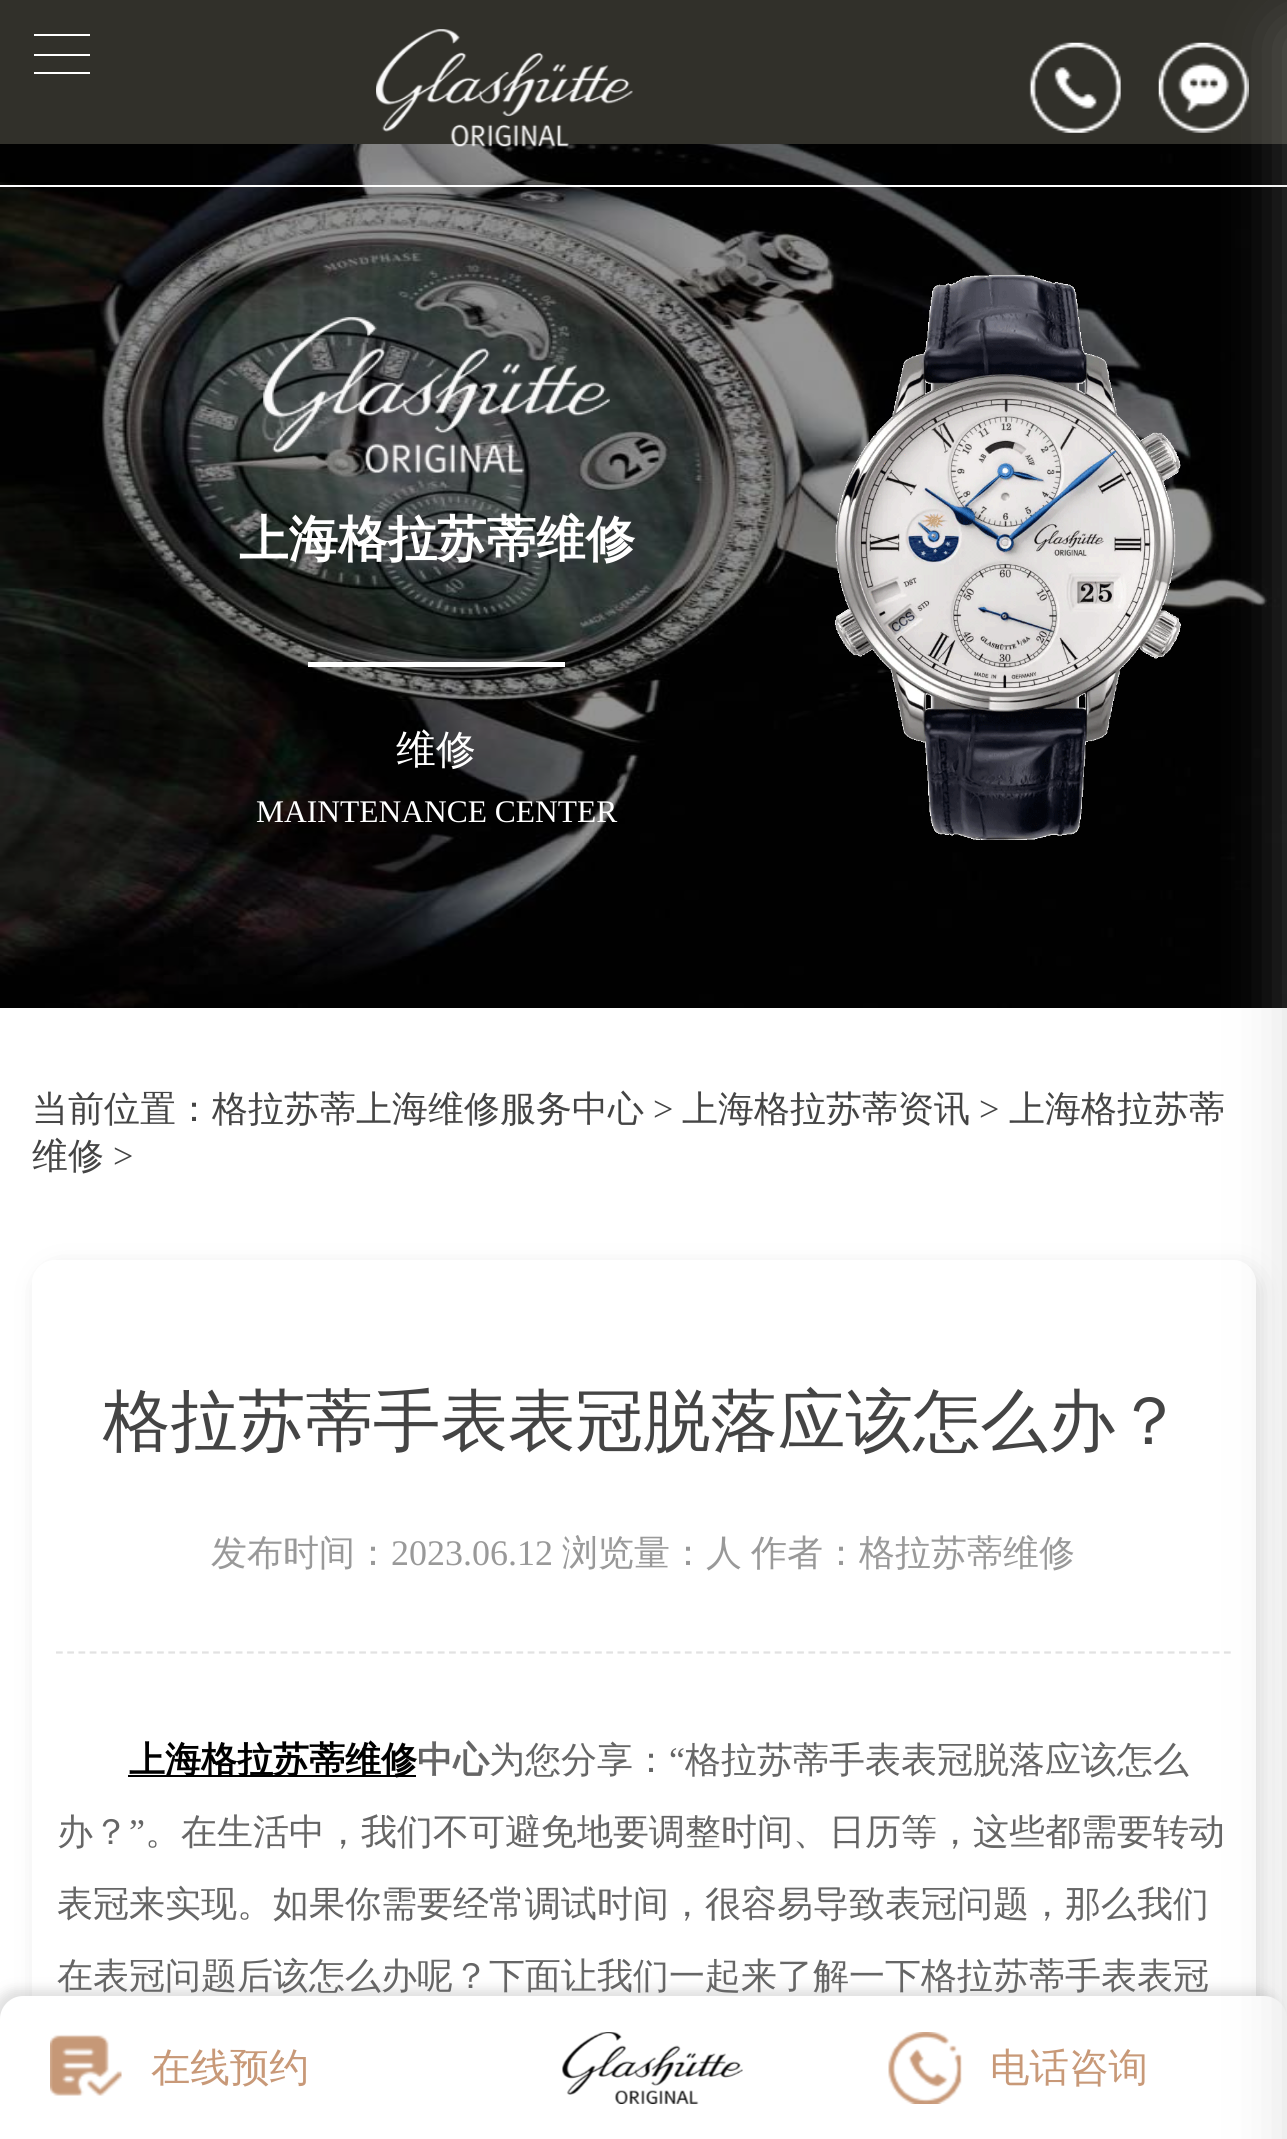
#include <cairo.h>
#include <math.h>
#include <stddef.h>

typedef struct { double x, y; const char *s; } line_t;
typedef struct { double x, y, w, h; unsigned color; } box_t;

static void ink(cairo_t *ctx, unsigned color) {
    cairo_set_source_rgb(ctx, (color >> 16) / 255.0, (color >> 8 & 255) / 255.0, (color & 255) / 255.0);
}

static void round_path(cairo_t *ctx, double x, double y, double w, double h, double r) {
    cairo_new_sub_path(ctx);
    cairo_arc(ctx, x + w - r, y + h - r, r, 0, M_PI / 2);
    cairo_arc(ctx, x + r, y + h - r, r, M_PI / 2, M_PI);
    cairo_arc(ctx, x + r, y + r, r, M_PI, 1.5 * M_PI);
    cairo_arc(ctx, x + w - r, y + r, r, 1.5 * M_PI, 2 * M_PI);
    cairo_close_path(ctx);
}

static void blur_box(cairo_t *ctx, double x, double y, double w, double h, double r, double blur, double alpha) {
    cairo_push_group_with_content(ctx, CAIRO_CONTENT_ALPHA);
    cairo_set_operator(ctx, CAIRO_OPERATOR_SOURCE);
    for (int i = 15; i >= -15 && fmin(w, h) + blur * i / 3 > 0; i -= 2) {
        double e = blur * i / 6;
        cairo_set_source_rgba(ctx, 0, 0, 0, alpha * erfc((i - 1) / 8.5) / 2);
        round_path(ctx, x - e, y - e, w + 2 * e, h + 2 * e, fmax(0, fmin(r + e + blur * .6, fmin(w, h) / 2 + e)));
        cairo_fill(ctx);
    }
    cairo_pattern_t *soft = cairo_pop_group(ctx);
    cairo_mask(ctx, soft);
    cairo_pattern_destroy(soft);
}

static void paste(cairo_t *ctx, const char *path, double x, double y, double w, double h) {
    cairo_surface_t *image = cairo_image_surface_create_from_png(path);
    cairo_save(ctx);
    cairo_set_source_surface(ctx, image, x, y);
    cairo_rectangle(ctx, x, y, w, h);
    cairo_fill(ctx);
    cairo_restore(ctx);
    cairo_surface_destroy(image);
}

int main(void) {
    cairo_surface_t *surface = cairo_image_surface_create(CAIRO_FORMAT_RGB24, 1287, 2139);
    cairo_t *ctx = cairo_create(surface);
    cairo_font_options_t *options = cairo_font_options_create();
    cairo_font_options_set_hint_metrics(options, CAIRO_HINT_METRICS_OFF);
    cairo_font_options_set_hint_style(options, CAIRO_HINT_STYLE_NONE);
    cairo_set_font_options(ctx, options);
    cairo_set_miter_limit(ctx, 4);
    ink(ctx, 0xFFFFFF);
    cairo_paint(ctx);
    ink(ctx, 0x31302A);
    cairo_rectangle(ctx, 0, 0, 1287, 144);
    cairo_fill(ctx);
    paste(ctx, "media/3.png", 1158, 42, 91, 91);
    paste(ctx, "media/4.png", 0, 144, 1287, 864);
    ink(ctx, 0xFFFFFF);
    cairo_rectangle(ctx, 0, 185, 1287, 2);
    cairo_fill(ctx);
    cairo_save(ctx);
    cairo_set_fill_rule(ctx, CAIRO_FILL_RULE_EVEN_ODD);
    cairo_new_path(ctx);
    cairo_move_to(ctx, 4, 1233);
    cairo_line_to(ctx, 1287, 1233);
    cairo_line_to(ctx, 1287, 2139);
    cairo_line_to(ctx, 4, 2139);
    cairo_close_path(ctx);
    cairo_move_to(ctx, 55, 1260);
    cairo_line_to(ctx, 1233, 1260);
    cairo_curve_to(ctx, 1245.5, 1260, 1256, 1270.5, 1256, 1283);
    cairo_line_to(ctx, 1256, 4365);
    cairo_curve_to(ctx, 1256, 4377.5, 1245.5, 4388, 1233, 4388);
    cairo_line_to(ctx, 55, 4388);
    cairo_curve_to(ctx, 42.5, 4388, 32, 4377.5, 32, 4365);
    cairo_line_to(ctx, 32, 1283);
    cairo_curve_to(ctx, 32, 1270.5, 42.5, 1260, 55, 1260);
    cairo_close_path(ctx);
    cairo_clip(ctx);
    ink(ctx, 0x666666);
    blur_box(ctx, 38, 1267, 1224, 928, 23, 11, 0.2);
    cairo_restore(ctx);
    cairo_new_path(ctx);
    cairo_move_to(ctx, 56, 1652.5);
    cairo_line_to(ctx, 1231, 1652.5);
    ink(ctx, 0xE2E2E2);
    cairo_set_line_width(ctx, 2.2);
    cairo_set_dash(ctx, (double[]){6.75, 4.48}, 2, 0);
    cairo_stroke(ctx);
    ink(ctx, 0x666666);
    blur_box(ctx, -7, 1989, 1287, 144, 23, 5.5, 0.2);
    ink(ctx, 0xFFFFFF);
    cairo_new_path(ctx);
    cairo_move_to(ctx, 23, 1996);
    cairo_line_to(ctx, 1264, 1996);
    cairo_curve_to(ctx, 1276.5, 1996, 1287, 2006.5, 1287, 2019);
    cairo_line_to(ctx, 1287, 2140);
    cairo_line_to(ctx, 0, 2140);
    cairo_line_to(ctx, 0, 2019);
    cairo_curve_to(ctx, 0, 2006.5, 10.5, 1996, 23, 1996);
    cairo_close_path(ctx);
    cairo_fill(ctx);
    ink(ctx, 0xA7A5A5);
    blur_box(ctx, 1287, 34, 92, 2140, 0, 30.5, 0.38);
    {
        static const box_t items[] = {
            {34, 54, 56, 2, 0xFFFFFF},
            {34, 34, 56, 2, 0xFFFFFF},
            {34, 72, 56, 2, 0xFFFFFF},
        };
        for (size_t i = 0; i < sizeof items / sizeof *items; i++) {
            ink(ctx, items[i].color);
            cairo_rectangle(ctx, items[i].x, items[i].y, items[i].w, items[i].h);
            cairo_fill(ctx);
        }
    }
    paste(ctx, "media/1.png", 376, 29, 257, 118);
    paste(ctx, "media/2.png", 1029, 42, 92, 91);
    paste(ctx, "media/5.png", 263, 317, 347, 156);
    cairo_select_font_face(ctx, "WenQuanYi Zen Hei", CAIRO_FONT_SLANT_NORMAL, CAIRO_FONT_WEIGHT_BOLD);
    cairo_set_font_size(ctx, 49.5);
    cairo_move_to(ctx, 239, 556);
    cairo_show_text(ctx, "上海格拉苏蒂维修");
    cairo_rectangle(ctx, 308, 662, 257, 5);
    cairo_fill(ctx);
    cairo_select_font_face(ctx, "WenQuanYi Zen Hei Medium", CAIRO_FONT_SLANT_NORMAL, CAIRO_FONT_WEIGHT_NORMAL);
    cairo_set_font_size(ctx, 40);
    cairo_move_to(ctx, 396, 763);
    cairo_show_text(ctx, "维修");
    cairo_select_font_face(ctx, "Liberation Serif", CAIRO_FONT_SLANT_NORMAL, CAIRO_FONT_WEIGHT_NORMAL);
    cairo_set_font_size(ctx, 31.5);
    cairo_move_to(ctx, 256, 822);
    cairo_show_text(ctx, "MAINTENANCE CENTER");
    paste(ctx, "media/6.png", 835, 275, 346, 565);
    cairo_select_font_face(ctx, "WenQuanYi Zen Hei Medium", CAIRO_FONT_SLANT_NORMAL, CAIRO_FONT_WEIGHT_NORMAL);
    cairo_set_font_size(ctx, 36);
    ink(ctx, 0x444444);
    cairo_move_to(ctx, 32, 1121);
    cairo_show_text(ctx, "当前位置：格拉苏蒂上海维修服务中心");
    cairo_select_font_face(ctx, "Liberation Serif", CAIRO_FONT_SLANT_NORMAL, CAIRO_FONT_WEIGHT_NORMAL);
    cairo_move_to(ctx, 653, 1121);
    cairo_show_text(ctx, ">");
    cairo_select_font_face(ctx, "WenQuanYi Zen Hei Medium", CAIRO_FONT_SLANT_NORMAL, CAIRO_FONT_WEIGHT_NORMAL);
    cairo_move_to(ctx, 682, 1121);
    cairo_show_text(ctx, "上海格拉苏蒂资讯");
    cairo_select_font_face(ctx, "Liberation Serif", CAIRO_FONT_SLANT_NORMAL, CAIRO_FONT_WEIGHT_NORMAL);
    cairo_move_to(ctx, 979, 1121);
    cairo_show_text(ctx, ">");
    cairo_select_font_face(ctx, "WenQuanYi Zen Hei Medium", CAIRO_FONT_SLANT_NORMAL, CAIRO_FONT_WEIGHT_NORMAL);
    cairo_move_to(ctx, 1009, 1121);
    cairo_show_text(ctx, "上海格拉苏蒂");
    cairo_move_to(ctx, 32, 1168);
    cairo_show_text(ctx, "维修");
    cairo_select_font_face(ctx, "Liberation Serif", CAIRO_FONT_SLANT_NORMAL, CAIRO_FONT_WEIGHT_NORMAL);
    cairo_move_to(ctx, 113, 1168);
    cairo_show_text(ctx, ">");
    cairo_select_font_face(ctx, "WenQuanYi Zen Hei Medium", CAIRO_FONT_SLANT_NORMAL, CAIRO_FONT_WEIGHT_NORMAL);
    cairo_set_font_size(ctx, 67.5);
    cairo_move_to(ctx, 103, 1444);
    cairo_show_text(ctx, "格拉苏蒂手表表冠脱落应该怎么办？");
    cairo_set_font_size(ctx, 36);
    ink(ctx, 0x999999);
    cairo_move_to(ctx, 211, 1565);
    cairo_show_text(ctx, "发布时间：");
    cairo_select_font_face(ctx, "Liberation Serif", CAIRO_FONT_SLANT_NORMAL, CAIRO_FONT_WEIGHT_NORMAL);
    cairo_move_to(ctx, 391, 1565);
    cairo_show_text(ctx, "2023.06.12");
    cairo_select_font_face(ctx, "WenQuanYi Zen Hei Medium", CAIRO_FONT_SLANT_NORMAL, CAIRO_FONT_WEIGHT_NORMAL);
    cairo_move_to(ctx, 562, 1565);
    cairo_show_text(ctx, "浏览量：人");
    cairo_move_to(ctx, 751, 1565);
    cairo_show_text(ctx, "作者：格拉苏蒂维修");
    ink(ctx, 0x000000);
    cairo_rectangle(ctx, 128, 1775, 288, 2);
    cairo_fill(ctx);
    cairo_select_font_face(ctx, "WenQuanYi Zen Hei", CAIRO_FONT_SLANT_NORMAL, CAIRO_FONT_WEIGHT_BOLD);
    cairo_move_to(ctx, 129, 1772);
    cairo_show_text(ctx, "上海格拉苏蒂维修");
    ink(ctx, 0x666666);
    cairo_move_to(ctx, 417, 1772);
    cairo_show_text(ctx, "中心");
    cairo_select_font_face(ctx, "WenQuanYi Zen Hei Medium", CAIRO_FONT_SLANT_NORMAL, CAIRO_FONT_WEIGHT_NORMAL);
    cairo_move_to(ctx, 489, 1772);
    cairo_show_text(ctx, "为您分享：");
    cairo_select_font_face(ctx, "Liberation Serif", CAIRO_FONT_SLANT_NORMAL, CAIRO_FONT_WEIGHT_NORMAL);
    cairo_move_to(ctx, 669, 1772);
    cairo_show_text(ctx, "“");
    cairo_select_font_face(ctx, "WenQuanYi Zen Hei Medium", CAIRO_FONT_SLANT_NORMAL, CAIRO_FONT_WEIGHT_NORMAL);
    cairo_move_to(ctx, 685, 1772);
    cairo_show_text(ctx, "格拉苏蒂手表表冠脱落应该怎么");
    cairo_move_to(ctx, 57, 1844);
    cairo_show_text(ctx, "办？");
    cairo_select_font_face(ctx, "Liberation Serif", CAIRO_FONT_SLANT_NORMAL, CAIRO_FONT_WEIGHT_NORMAL);
    cairo_move_to(ctx, 129, 1844);
    cairo_show_text(ctx, "”");
    cairo_select_font_face(ctx, "WenQuanYi Zen Hei Medium", CAIRO_FONT_SLANT_NORMAL, CAIRO_FONT_WEIGHT_NORMAL);
    {
        static const line_t items[] = {
            {145, 1844, "。在生活中，我们不可避免地要调整时间、日历等，这些都需要转动"},
            {57, 1916, "表冠来实现。如果你需要经常调试时间，很容易导致表冠问题，那么我们"},
            {57, 1988, "在表冠问题后该怎么办呢？下面让我们一起来了解一下格拉苏蒂手表表冠"},
        };
        for (size_t i = 0; i < sizeof items / sizeof *items; i++) {
            cairo_move_to(ctx, items[i].x, items[i].y);
            cairo_show_text(ctx, items[i].s);
        }
    }
    paste(ctx, "media/7.png", 50, 2034, 72, 62);
    cairo_set_font_size(ctx, 39.5);
    ink(ctx, 0xC89978);
    cairo_move_to(ctx, 151, 2081);
    cairo_show_text(ctx, "在线预约");
    paste(ctx, "media/8.png", 562, 2032, 181, 72);
    paste(ctx, "media/9.png", 888, 2032, 74, 72);
    cairo_move_to(ctx, 990, 2081);
    cairo_show_text(ctx, "电话咨询");
    cairo_surface_write_to_png(surface, "image.png");
    cairo_font_options_destroy(options);
    cairo_destroy(ctx);
    cairo_surface_destroy(surface);
    return 0;
}
